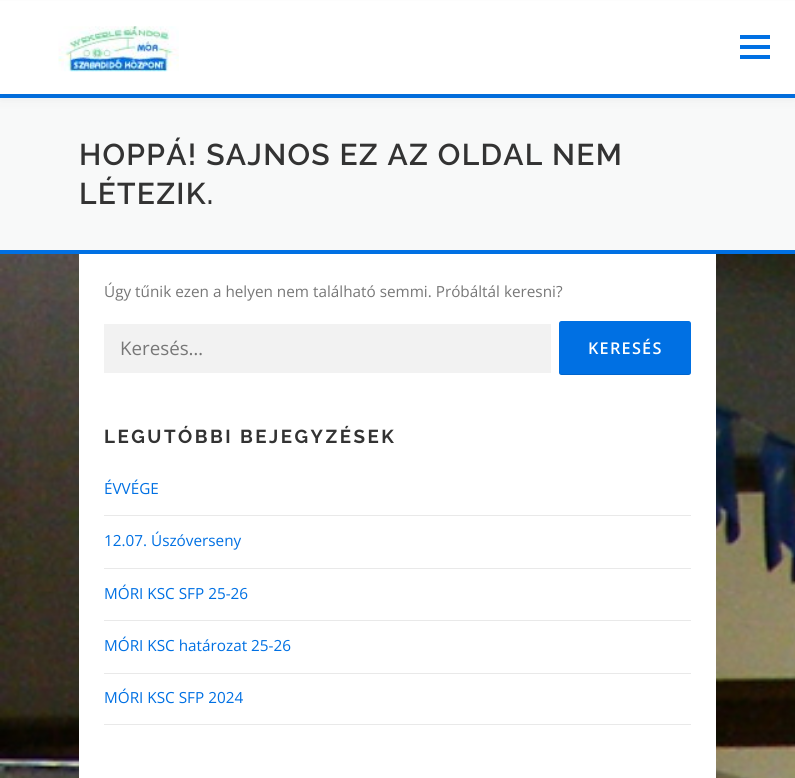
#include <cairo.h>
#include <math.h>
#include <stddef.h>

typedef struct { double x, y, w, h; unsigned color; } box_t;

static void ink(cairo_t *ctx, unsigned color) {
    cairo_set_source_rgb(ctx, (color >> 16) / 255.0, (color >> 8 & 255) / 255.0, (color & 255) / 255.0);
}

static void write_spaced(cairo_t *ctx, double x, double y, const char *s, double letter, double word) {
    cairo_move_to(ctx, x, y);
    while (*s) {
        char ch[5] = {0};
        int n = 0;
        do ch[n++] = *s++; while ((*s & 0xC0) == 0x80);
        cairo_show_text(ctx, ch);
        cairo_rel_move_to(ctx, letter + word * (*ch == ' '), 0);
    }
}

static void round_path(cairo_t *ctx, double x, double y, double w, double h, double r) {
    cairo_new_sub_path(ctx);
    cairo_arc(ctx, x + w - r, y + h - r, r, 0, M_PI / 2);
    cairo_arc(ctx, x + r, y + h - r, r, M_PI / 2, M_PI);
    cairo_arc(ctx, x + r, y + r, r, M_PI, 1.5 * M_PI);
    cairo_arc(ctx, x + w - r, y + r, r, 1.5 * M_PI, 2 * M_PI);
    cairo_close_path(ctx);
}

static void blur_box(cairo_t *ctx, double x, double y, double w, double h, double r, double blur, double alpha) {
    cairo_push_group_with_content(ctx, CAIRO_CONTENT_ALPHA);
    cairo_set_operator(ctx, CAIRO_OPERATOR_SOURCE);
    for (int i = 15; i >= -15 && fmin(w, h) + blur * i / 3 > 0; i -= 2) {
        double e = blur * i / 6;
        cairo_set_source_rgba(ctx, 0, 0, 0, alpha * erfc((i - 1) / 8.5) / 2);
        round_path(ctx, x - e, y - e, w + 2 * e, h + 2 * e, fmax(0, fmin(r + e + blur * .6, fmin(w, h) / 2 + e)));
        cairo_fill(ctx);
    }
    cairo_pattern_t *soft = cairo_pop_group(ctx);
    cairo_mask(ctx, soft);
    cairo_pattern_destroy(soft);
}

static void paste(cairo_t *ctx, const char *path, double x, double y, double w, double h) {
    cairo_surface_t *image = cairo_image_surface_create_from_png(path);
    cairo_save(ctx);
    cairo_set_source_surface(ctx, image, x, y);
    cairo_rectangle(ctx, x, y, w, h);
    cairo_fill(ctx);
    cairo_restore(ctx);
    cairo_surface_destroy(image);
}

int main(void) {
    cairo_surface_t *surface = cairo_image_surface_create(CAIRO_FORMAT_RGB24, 795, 778);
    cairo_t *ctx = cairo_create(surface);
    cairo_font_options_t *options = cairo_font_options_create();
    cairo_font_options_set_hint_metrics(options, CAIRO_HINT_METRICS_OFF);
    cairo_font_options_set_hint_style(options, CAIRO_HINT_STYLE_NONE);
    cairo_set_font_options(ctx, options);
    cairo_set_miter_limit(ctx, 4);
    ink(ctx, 0xFFFFFF);
    cairo_paint(ctx);
    ink(ctx, 0xF8F9F9);
    cairo_rectangle(ctx, 0, 98, 795, 152);
    cairo_fill(ctx);
    ink(ctx, 0x0070E3);
    cairo_rectangle(ctx, 0, 94, 795, 4);
    cairo_fill(ctx);
    ink(ctx, 0x323232);
    blur_box(ctx, 0, 6, 795, 94, 0, 6, 0.06);
    ink(ctx, 0xFFFFFF);
    cairo_rectangle(ctx, 0, 1, 795, 93);
    cairo_fill(ctx);
    paste(ctx, "media/1.png", 58, 26, 121, 46);
    {
        static const box_t items[] = {
            {740, 45, 30, 4, 0x0070E3},
            {740, 35, 30, 4, 0x0070E3},
            {740, 55, 30, 4, 0x0070E3},
        };
        for (size_t i = 0; i < sizeof items / sizeof *items; i++) {
            ink(ctx, items[i].color);
            cairo_rectangle(ctx, items[i].x, items[i].y, items[i].w, items[i].h);
            cairo_fill(ctx);
        }
    }
    paste(ctx, "media/2.png", 0, 254, 795, 524);
    cairo_rectangle(ctx, 0, 250, 795, 4);
    cairo_fill(ctx);
    cairo_select_font_face(ctx, "Raleway SemiBold", CAIRO_FONT_SLANT_NORMAL, CAIRO_FONT_WEIGHT_NORMAL);
    cairo_set_font_size(ctx, 30);
    ink(ctx, 0x333333);
    write_spaced(ctx, 79, 165, "HOPPÁ! SAJNOS EZ AZ OLDAL NEM", 1.25, 0);
    write_spaced(ctx, 79, 204, "LÉTEZIK.", 1.25, 0);
    ink(ctx, 0xFFFFFF);
    cairo_rectangle(ctx, 79, 254, 637, 524);
    cairo_fill(ctx);
    cairo_select_font_face(ctx, "Open Sans", CAIRO_FONT_SLANT_NORMAL, CAIRO_FONT_WEIGHT_NORMAL);
    cairo_set_font_size(ctx, 15.3);
    ink(ctx, 0x777777);
    cairo_move_to(ctx, 104, 297);
    cairo_show_text(ctx, "Úgy tűnik ezen a helyen nem található semmi. Próbáltál keresni?");
    ink(ctx, 0xF2F2F2);
    cairo_rectangle(ctx, 104, 324, 447, 49);
    cairo_fill(ctx);
    cairo_set_font_size(ctx, 18.75);
    ink(ctx, 0x777777);
    cairo_move_to(ctx, 120, 355);
    cairo_show_text(ctx, "Keresés…");
    ink(ctx, 0x0070E3);
    round_path(ctx, 559, 321, 132, 54, 2.5);
    cairo_fill(ctx);
    cairo_set_source_rgba(ctx, 0, 0, 0, 0.1);
    cairo_new_path(ctx);
    cairo_move_to(ctx, 559, 371);
    cairo_line_to(ctx, 559, 372);
    cairo_curve_to(ctx, 559, 374, 560, 375, 562, 375);
    cairo_line_to(ctx, 688, 375);
    cairo_curve_to(ctx, 690, 375, 691, 374, 691, 372);
    cairo_line_to(ctx, 691, 371);
    cairo_curve_to(ctx, 691, 373, 690, 374, 689, 374);
    cairo_line_to(ctx, 561, 374);
    cairo_curve_to(ctx, 560, 374, 559, 373, 559, 371);
    cairo_close_path(ctx);
    cairo_fill(ctx);
    cairo_select_font_face(ctx, "Open Sans SemiBold", CAIRO_FONT_SLANT_NORMAL, CAIRO_FONT_WEIGHT_NORMAL);
    cairo_set_font_size(ctx, 16.25);
    ink(ctx, 0xFFFFFF);
    write_spaced(ctx, 588, 354, "KERESÉS", 1.25, 0);
    cairo_select_font_face(ctx, "Raleway", CAIRO_FONT_SLANT_NORMAL, CAIRO_FONT_WEIGHT_BOLD);
    cairo_set_font_size(ctx, 18.75);
    ink(ctx, 0x333333);
    write_spaced(ctx, 104, 443, "LEGUTÓBBI BEJEGYZÉSEK", 2.5, 0);
    ink(ctx, 0xE9E9E9);
    cairo_rectangle(ctx, 104, 515, 587, 1);
    cairo_fill(ctx);
    cairo_select_font_face(ctx, "Open Sans", CAIRO_FONT_SLANT_NORMAL, CAIRO_FONT_WEIGHT_NORMAL);
    cairo_set_font_size(ctx, 15.3);
    ink(ctx, 0x0070E3);
    cairo_move_to(ctx, 104, 494);
    cairo_show_text(ctx, "ÉVVÉGE");
    ink(ctx, 0xE9E9E9);
    cairo_rectangle(ctx, 104, 568, 587, 1);
    cairo_fill(ctx);
    ink(ctx, 0x0070E3);
    cairo_move_to(ctx, 104, 546);
    cairo_show_text(ctx, "12.07. Úszóverseny");
    ink(ctx, 0xE9E9E9);
    cairo_rectangle(ctx, 104, 620, 587, 1);
    cairo_fill(ctx);
    ink(ctx, 0x0070E3);
    cairo_move_to(ctx, 104, 599);
    cairo_show_text(ctx, "MÓRI KSC SFP 25-26");
    ink(ctx, 0xE9E9E9);
    cairo_rectangle(ctx, 104, 673, 587, 1);
    cairo_fill(ctx);
    ink(ctx, 0x0070E3);
    cairo_move_to(ctx, 104, 651);
    cairo_show_text(ctx, "MÓRI KSC határozat 25-26");
    ink(ctx, 0xE9E9E9);
    cairo_rectangle(ctx, 104, 724, 587, 1);
    cairo_fill(ctx);
    ink(ctx, 0x0070E3);
    cairo_move_to(ctx, 104, 703);
    cairo_show_text(ctx, "MÓRI KSC SFP 2024");
    cairo_surface_write_to_png(surface, "image.png");
    cairo_font_options_destroy(options);
    cairo_destroy(ctx);
    cairo_surface_destroy(surface);
    return 0;
}
